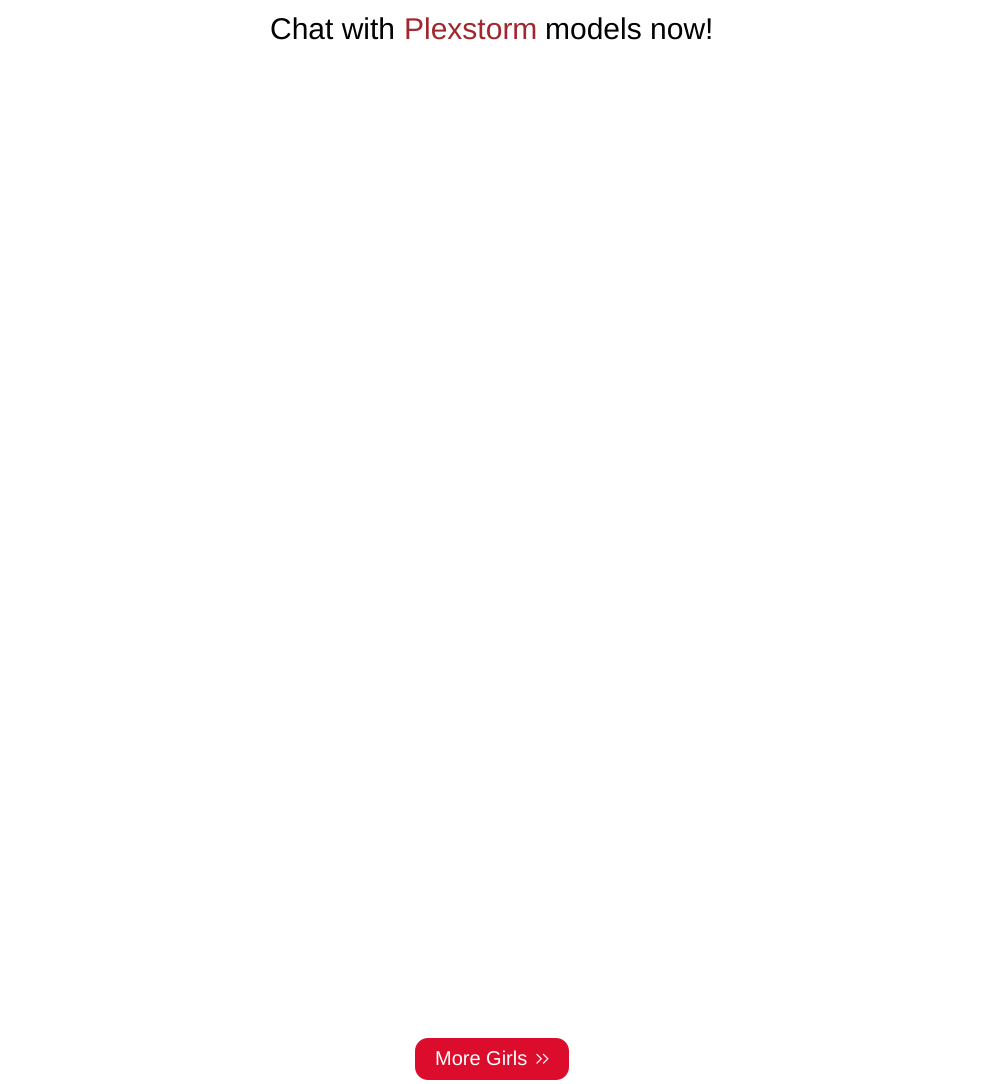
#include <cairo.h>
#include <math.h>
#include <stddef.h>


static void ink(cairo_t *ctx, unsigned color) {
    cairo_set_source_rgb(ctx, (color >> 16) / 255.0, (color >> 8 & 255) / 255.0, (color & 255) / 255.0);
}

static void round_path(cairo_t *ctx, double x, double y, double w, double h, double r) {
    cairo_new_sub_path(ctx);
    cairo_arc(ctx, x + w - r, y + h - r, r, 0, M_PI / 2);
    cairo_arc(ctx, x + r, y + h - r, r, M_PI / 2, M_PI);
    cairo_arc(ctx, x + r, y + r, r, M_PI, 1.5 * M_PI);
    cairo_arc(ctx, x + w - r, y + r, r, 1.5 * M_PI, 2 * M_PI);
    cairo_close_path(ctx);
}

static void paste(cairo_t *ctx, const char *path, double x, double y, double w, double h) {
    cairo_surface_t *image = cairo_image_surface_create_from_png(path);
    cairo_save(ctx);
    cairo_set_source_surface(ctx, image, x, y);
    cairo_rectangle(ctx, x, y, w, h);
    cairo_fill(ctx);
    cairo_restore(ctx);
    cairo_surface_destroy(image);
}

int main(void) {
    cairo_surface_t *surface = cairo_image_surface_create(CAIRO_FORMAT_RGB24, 983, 1084);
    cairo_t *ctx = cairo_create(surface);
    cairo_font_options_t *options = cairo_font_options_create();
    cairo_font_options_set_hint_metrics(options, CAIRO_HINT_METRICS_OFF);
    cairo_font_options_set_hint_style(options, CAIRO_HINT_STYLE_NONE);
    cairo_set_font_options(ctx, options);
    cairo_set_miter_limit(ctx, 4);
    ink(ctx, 0xFFFFFF);
    cairo_paint(ctx);
    cairo_select_font_face(ctx, "Liberation Sans", CAIRO_FONT_SLANT_NORMAL, CAIRO_FONT_WEIGHT_NORMAL);
    cairo_set_font_size(ctx, 30);
    ink(ctx, 0x000000);
    cairo_move_to(ctx, 270, 39);
    cairo_show_text(ctx, "Chat with");
    ink(ctx, 0xA2262E);
    cairo_move_to(ctx, 404, 39);
    cairo_show_text(ctx, "Plexstorm");
    ink(ctx, 0x000000);
    cairo_move_to(ctx, 545, 39);
    cairo_show_text(ctx, "models now!");
    ink(ctx, 0xDC0C2C);
    round_path(ctx, 415, 1038, 154, 42, 13);
    cairo_fill(ctx);
    cairo_set_font_size(ctx, 20);
    ink(ctx, 0xFFFFFF);
    cairo_move_to(ctx, 435, 1065);
    cairo_show_text(ctx, "More Girls");
    paste(ctx, "media/1.png", 536, 1053, 13, 11);
    cairo_surface_write_to_png(surface, "image.png");
    cairo_font_options_destroy(options);
    cairo_destroy(ctx);
    cairo_surface_destroy(surface);
    return 0;
}
